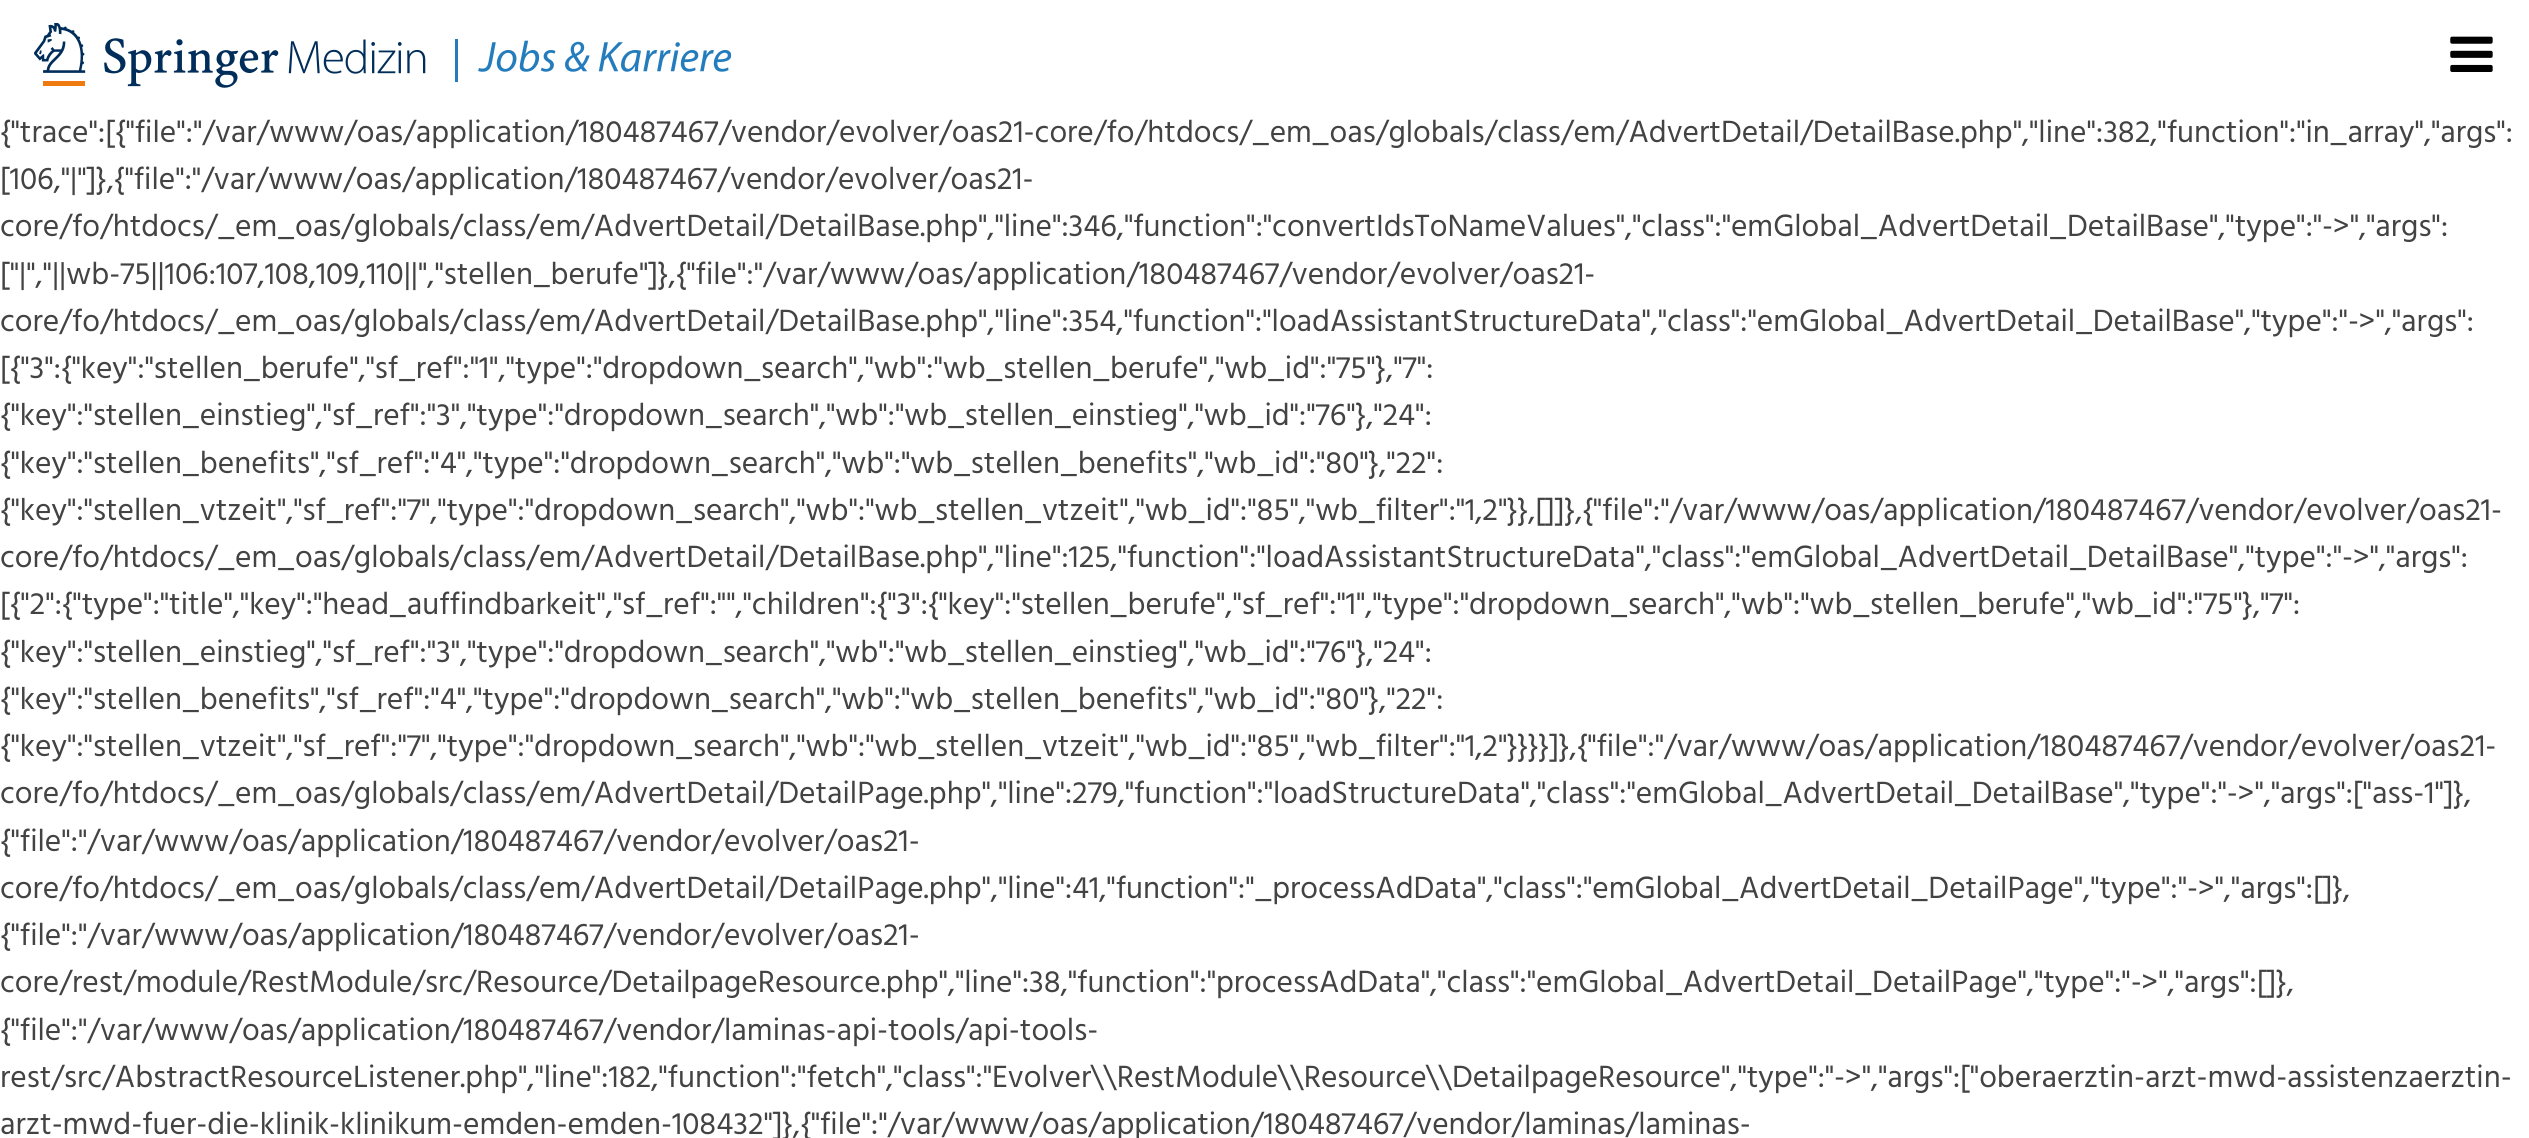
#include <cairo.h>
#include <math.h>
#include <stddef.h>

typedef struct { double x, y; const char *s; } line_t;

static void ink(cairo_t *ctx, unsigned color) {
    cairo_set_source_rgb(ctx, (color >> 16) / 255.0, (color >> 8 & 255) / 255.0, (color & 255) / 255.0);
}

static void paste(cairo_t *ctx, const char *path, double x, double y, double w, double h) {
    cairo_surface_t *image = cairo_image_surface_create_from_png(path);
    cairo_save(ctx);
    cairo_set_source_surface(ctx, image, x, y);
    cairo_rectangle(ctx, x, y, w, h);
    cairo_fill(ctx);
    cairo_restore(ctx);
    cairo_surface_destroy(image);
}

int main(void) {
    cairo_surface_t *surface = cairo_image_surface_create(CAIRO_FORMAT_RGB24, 2529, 1138);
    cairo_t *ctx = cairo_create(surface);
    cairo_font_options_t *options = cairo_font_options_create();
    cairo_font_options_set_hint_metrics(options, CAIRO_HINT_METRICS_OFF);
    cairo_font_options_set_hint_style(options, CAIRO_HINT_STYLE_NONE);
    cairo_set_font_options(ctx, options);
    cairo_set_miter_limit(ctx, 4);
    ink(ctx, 0xFFFFFF);
    cairo_paint(ctx);
    paste(ctx, "media/1.png", 34, 23, 697, 65);
    paste(ctx, "media/2.png", 2450, 36, 43, 36);
    cairo_select_font_face(ctx, "Hind", CAIRO_FONT_SLANT_NORMAL, CAIRO_FONT_WEIGHT_NORMAL);
    cairo_set_font_size(ctx, 31.5);
    ink(ctx, 0x434343);
    {
        static const line_t items[] = {
            {0, 142, "{\"trace\":[{\"file\":\"/var/www/oas/application/180487467/vendor/evolver/oas21-core/fo/htdocs/_em_oas/globals/class/em/AdvertDetail/DetailBase.php\",\"line\":382,\"function\":\"in_array\",\"args\":"},
            {0, 189, "[106,\"|\"]},{\"file\":\"/var/www/oas/application/180487467/vendor/evolver/oas21-"},
            {0, 236, "core/fo/htdocs/_em_oas/globals/class/em/AdvertDetail/DetailBase.php\",\"line\":346,\"function\":\"convertIdsToNameValues\",\"class\":\"emGlobal_AdvertDetail_DetailBase\",\"type\":\"->\",\"args\":"},
            {0, 284, "[\"|\",\"||wb-75||106:107,108,109,110||\",\"stellen_berufe\"]},{\"file\":\"/var/www/oas/application/180487467/vendor/evolver/oas21-"},
            {0, 331, "core/fo/htdocs/_em_oas/globals/class/em/AdvertDetail/DetailBase.php\",\"line\":354,\"function\":\"loadAssistantStructureData\",\"class\":\"emGlobal_AdvertDetail_DetailBase\",\"type\":\"->\",\"args\":"},
            {0, 378, "[{\"3\":{\"key\":\"stellen_berufe\",\"sf_ref\":\"1\",\"type\":\"dropdown_search\",\"wb\":\"wb_stellen_berufe\",\"wb_id\":\"75\"},\"7\":"},
            {0, 425, "{\"key\":\"stellen_einstieg\",\"sf_ref\":\"3\",\"type\":\"dropdown_search\",\"wb\":\"wb_stellen_einstieg\",\"wb_id\":\"76\"},\"24\":"},
            {0, 473, "{\"key\":\"stellen_benefits\",\"sf_ref\":\"4\",\"type\":\"dropdown_search\",\"wb\":\"wb_stellen_benefits\",\"wb_id\":\"80\"},\"22\":"},
            {0, 520, "{\"key\":\"stellen_vtzeit\",\"sf_ref\":\"7\",\"type\":\"dropdown_search\",\"wb\":\"wb_stellen_vtzeit\",\"wb_id\":\"85\",\"wb_filter\":\"1,2\"}},[]]},{\"file\":\"/var/www/oas/application/180487467/vendor/evolver/oas21-"},
            {0, 567, "core/fo/htdocs/_em_oas/globals/class/em/AdvertDetail/DetailBase.php\",\"line\":125,\"function\":\"loadAssistantStructureData\",\"class\":\"emGlobal_AdvertDetail_DetailBase\",\"type\":\"->\",\"args\":"},
            {0, 614, "[{\"2\":{\"type\":\"title\",\"key\":\"head_auffindbarkeit\",\"sf_ref\":\"\",\"children\":{\"3\":{\"key\":\"stellen_berufe\",\"sf_ref\":\"1\",\"type\":\"dropdown_search\",\"wb\":\"wb_stellen_berufe\",\"wb_id\":\"75\"},\"7\":"},
            {0, 662, "{\"key\":\"stellen_einstieg\",\"sf_ref\":\"3\",\"type\":\"dropdown_search\",\"wb\":\"wb_stellen_einstieg\",\"wb_id\":\"76\"},\"24\":"},
            {0, 709, "{\"key\":\"stellen_benefits\",\"sf_ref\":\"4\",\"type\":\"dropdown_search\",\"wb\":\"wb_stellen_benefits\",\"wb_id\":\"80\"},\"22\":"},
            {0, 756, "{\"key\":\"stellen_vtzeit\",\"sf_ref\":\"7\",\"type\":\"dropdown_search\",\"wb\":\"wb_stellen_vtzeit\",\"wb_id\":\"85\",\"wb_filter\":\"1,2\"}}}}]},{\"file\":\"/var/www/oas/application/180487467/vendor/evolver/oas21-"},
            {0, 803, "core/fo/htdocs/_em_oas/globals/class/em/AdvertDetail/DetailPage.php\",\"line\":279,\"function\":\"loadStructureData\",\"class\":\"emGlobal_AdvertDetail_DetailBase\",\"type\":\"->\",\"args\":[\"ass-1\"]},"},
            {0, 851, "{\"file\":\"/var/www/oas/application/180487467/vendor/evolver/oas21-"},
            {0, 898, "core/fo/htdocs/_em_oas/globals/class/em/AdvertDetail/DetailPage.php\",\"line\":41,\"function\":\"_processAdData\",\"class\":\"emGlobal_AdvertDetail_DetailPage\",\"type\":\"->\",\"args\":[]},"},
            {0, 945, "{\"file\":\"/var/www/oas/application/180487467/vendor/evolver/oas21-"},
            {0, 992, "core/rest/module/RestModule/src/Resource/DetailpageResource.php\",\"line\":38,\"function\":\"processAdData\",\"class\":\"emGlobal_AdvertDetail_DetailPage\",\"type\":\"->\",\"args\":[]},"},
            {0, 1040, "{\"file\":\"/var/www/oas/application/180487467/vendor/laminas-api-tools/api-tools-"},
            {0, 1087, "rest/src/AbstractResourceListener.php\",\"line\":182,\"function\":\"fetch\",\"class\":\"Evolver\\\\RestModule\\\\Resource\\\\DetailpageResource\",\"type\":\"->\",\"args\":[\"oberaerztin-arzt-mwd-assistenzaerztin-"},
            {0, 1134, "arzt-mwd-fuer-die-klinik-klinikum-emden-emden-108432\"]},{\"file\":\"/var/www/oas/application/180487467/vendor/laminas/laminas-"},
        };
        for (size_t i = 0; i < sizeof items / sizeof *items; i++) {
            cairo_move_to(ctx, items[i].x, items[i].y);
            cairo_show_text(ctx, items[i].s);
        }
    }
    cairo_surface_write_to_png(surface, "image.png");
    cairo_font_options_destroy(options);
    cairo_destroy(ctx);
    cairo_surface_destroy(surface);
    return 0;
}
